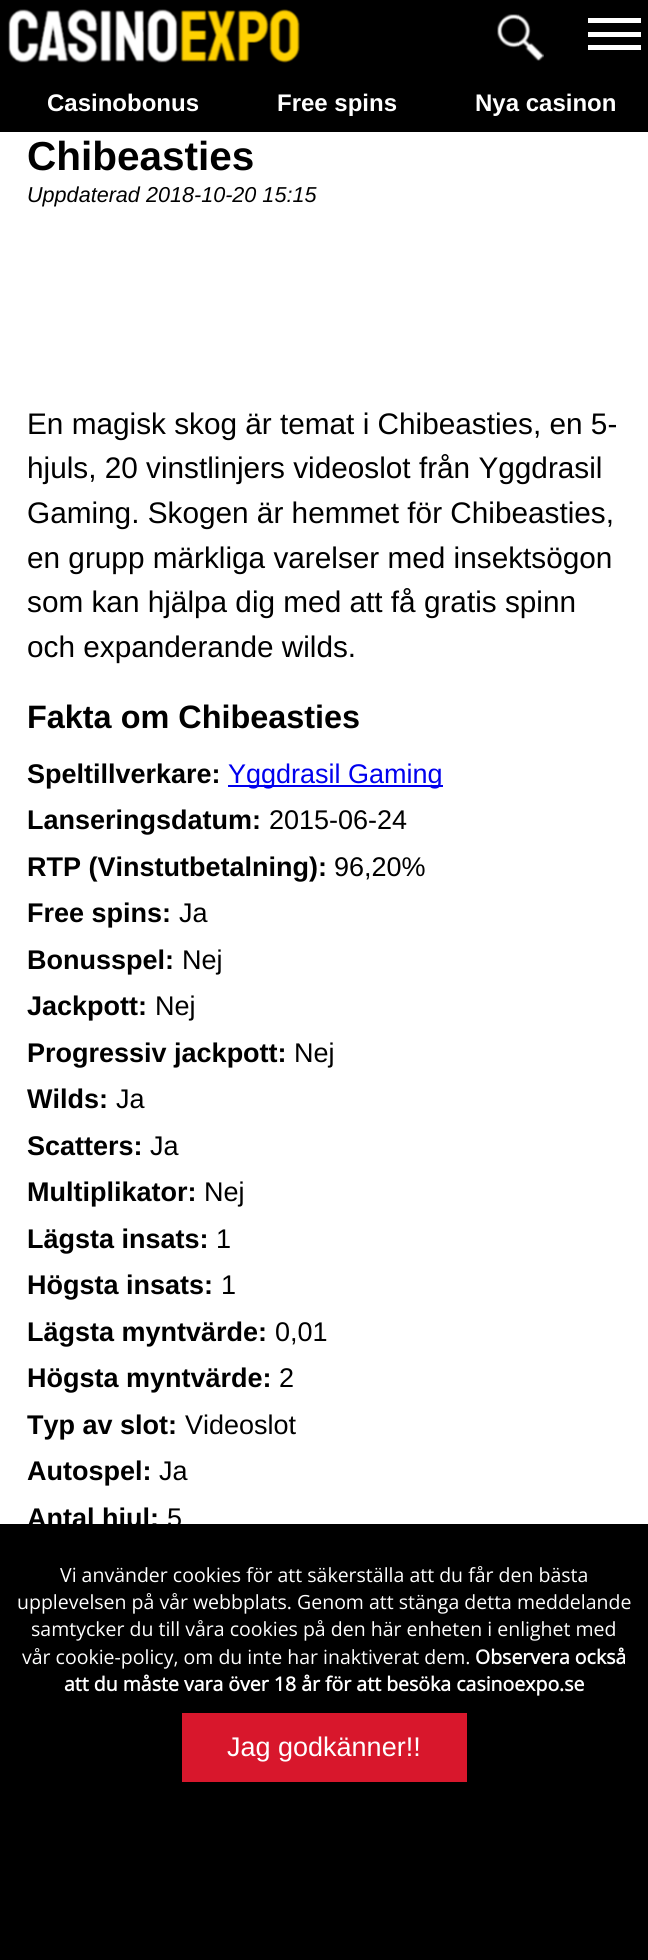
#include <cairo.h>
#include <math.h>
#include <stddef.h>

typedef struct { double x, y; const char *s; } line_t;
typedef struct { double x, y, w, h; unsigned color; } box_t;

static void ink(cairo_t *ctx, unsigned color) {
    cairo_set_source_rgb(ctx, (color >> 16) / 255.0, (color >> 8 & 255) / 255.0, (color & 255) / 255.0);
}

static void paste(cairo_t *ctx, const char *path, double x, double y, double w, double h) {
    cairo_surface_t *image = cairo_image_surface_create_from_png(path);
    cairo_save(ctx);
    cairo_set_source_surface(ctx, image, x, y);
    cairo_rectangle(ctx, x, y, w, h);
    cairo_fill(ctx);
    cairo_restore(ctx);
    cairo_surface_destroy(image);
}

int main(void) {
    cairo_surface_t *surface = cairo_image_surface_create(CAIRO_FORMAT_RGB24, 648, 1960);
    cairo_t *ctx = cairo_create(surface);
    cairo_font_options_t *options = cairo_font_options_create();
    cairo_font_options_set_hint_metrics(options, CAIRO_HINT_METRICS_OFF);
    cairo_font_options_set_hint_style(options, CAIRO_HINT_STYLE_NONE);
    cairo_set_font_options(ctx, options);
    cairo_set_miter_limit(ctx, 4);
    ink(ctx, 0xFFFFFF);
    cairo_paint(ctx);
    ink(ctx, 0x000000);
    cairo_rectangle(ctx, 0, 0, 648, 132);
    cairo_fill(ctx);
    paste(ctx, "media/1.png", 8, 9, 292, 54);
    paste(ctx, "media/2.png", 497, 14, 47, 47);
    {
        static const box_t items[] = {
            {588, 18, 53, 5, 0xFFFFFF},
            {588, 32, 53, 5, 0xFFFFFF},
            {588, 45, 53, 5, 0xFFFFFF},
        };
        for (size_t i = 0; i < sizeof items / sizeof *items; i++) {
            ink(ctx, items[i].color);
            cairo_rectangle(ctx, items[i].x, items[i].y, items[i].w, items[i].h);
            cairo_fill(ctx);
        }
    }
    cairo_select_font_face(ctx, "Liberation Sans", CAIRO_FONT_SLANT_NORMAL, CAIRO_FONT_WEIGHT_BOLD);
    cairo_set_font_size(ctx, 24);
    {
        static const line_t items[] = {
            {47, 111, "Casinobonus"},
            {277, 111, "Free spins"},
            {475, 111, "Nya casinon"},
        };
        for (size_t i = 0; i < sizeof items / sizeof *items; i++) {
            cairo_move_to(ctx, items[i].x, items[i].y);
            cairo_show_text(ctx, items[i].s);
        }
    }
    cairo_set_font_size(ctx, 40.5);
    ink(ctx, 0x000000);
    cairo_move_to(ctx, 27, 170);
    cairo_show_text(ctx, "Chibeasties");
    cairo_select_font_face(ctx, "Liberation Sans", CAIRO_FONT_SLANT_ITALIC, CAIRO_FONT_WEIGHT_NORMAL);
    cairo_set_font_size(ctx, 21.6);
    cairo_move_to(ctx, 27, 202);
    cairo_show_text(ctx, "Uppdaterad 2018-10-20 15:15");
    cairo_select_font_face(ctx, "Liberation Sans", CAIRO_FONT_SLANT_NORMAL, CAIRO_FONT_WEIGHT_NORMAL);
    cairo_set_font_size(ctx, 29.75);
    {
        static const line_t items[] = {
            {27, 434, "En magisk skog är temat i Chibeasties, en 5-"},
            {27, 478, "hjuls, 20 vinstlinjers videoslot från Yggdrasil"},
            {27, 523, "Gaming. Skogen är hemmet för Chibeasties,"},
            {27, 568, "en grupp märkliga varelser med insektsögon"},
            {27, 612, "som kan hjälpa dig med att få gratis spinn"},
            {27, 657, "och expanderande wilds."},
        };
        for (size_t i = 0; i < sizeof items / sizeof *items; i++) {
            cairo_move_to(ctx, items[i].x, items[i].y);
            cairo_show_text(ctx, items[i].s);
        }
    }
    cairo_select_font_face(ctx, "Liberation Sans", CAIRO_FONT_SLANT_NORMAL, CAIRO_FONT_WEIGHT_BOLD);
    cairo_set_font_size(ctx, 32.4);
    cairo_move_to(ctx, 27, 728);
    cairo_show_text(ctx, "Fakta om Chibeasties");
    cairo_set_font_size(ctx, 27);
    cairo_move_to(ctx, 27, 783);
    cairo_show_text(ctx, "Speltillverkare:");
    ink(ctx, 0x0000EE);
    cairo_rectangle(ctx, 228, 785, 215, 2);
    cairo_fill(ctx);
    cairo_select_font_face(ctx, "Liberation Sans", CAIRO_FONT_SLANT_NORMAL, CAIRO_FONT_WEIGHT_NORMAL);
    cairo_move_to(ctx, 228, 783);
    cairo_show_text(ctx, "Yggdrasil Gaming");
    cairo_select_font_face(ctx, "Liberation Sans", CAIRO_FONT_SLANT_NORMAL, CAIRO_FONT_WEIGHT_BOLD);
    ink(ctx, 0x000000);
    cairo_move_to(ctx, 27, 829);
    cairo_show_text(ctx, "Lanseringsdatum:");
    cairo_select_font_face(ctx, "Liberation Sans", CAIRO_FONT_SLANT_NORMAL, CAIRO_FONT_WEIGHT_NORMAL);
    cairo_move_to(ctx, 269, 829);
    cairo_show_text(ctx, "2015-06-24");
    cairo_select_font_face(ctx, "Liberation Sans", CAIRO_FONT_SLANT_NORMAL, CAIRO_FONT_WEIGHT_BOLD);
    cairo_move_to(ctx, 27, 876);
    cairo_show_text(ctx, "RTP (Vinstutbetalning):");
    cairo_select_font_face(ctx, "Liberation Sans", CAIRO_FONT_SLANT_NORMAL, CAIRO_FONT_WEIGHT_NORMAL);
    cairo_move_to(ctx, 334, 876);
    cairo_show_text(ctx, "96,20%");
    cairo_select_font_face(ctx, "Liberation Sans", CAIRO_FONT_SLANT_NORMAL, CAIRO_FONT_WEIGHT_BOLD);
    cairo_move_to(ctx, 27, 922);
    cairo_show_text(ctx, "Free spins:");
    cairo_select_font_face(ctx, "Liberation Sans", CAIRO_FONT_SLANT_NORMAL, CAIRO_FONT_WEIGHT_NORMAL);
    cairo_move_to(ctx, 179, 922);
    cairo_show_text(ctx, "Ja");
    cairo_select_font_face(ctx, "Liberation Sans", CAIRO_FONT_SLANT_NORMAL, CAIRO_FONT_WEIGHT_BOLD);
    cairo_move_to(ctx, 27, 969);
    cairo_show_text(ctx, "Bonusspel:");
    cairo_select_font_face(ctx, "Liberation Sans", CAIRO_FONT_SLANT_NORMAL, CAIRO_FONT_WEIGHT_NORMAL);
    cairo_move_to(ctx, 182, 969);
    cairo_show_text(ctx, "Nej");
    cairo_select_font_face(ctx, "Liberation Sans", CAIRO_FONT_SLANT_NORMAL, CAIRO_FONT_WEIGHT_BOLD);
    cairo_move_to(ctx, 27, 1015);
    cairo_show_text(ctx, "Jackpott:");
    cairo_select_font_face(ctx, "Liberation Sans", CAIRO_FONT_SLANT_NORMAL, CAIRO_FONT_WEIGHT_NORMAL);
    cairo_move_to(ctx, 155, 1015);
    cairo_show_text(ctx, "Nej");
    cairo_select_font_face(ctx, "Liberation Sans", CAIRO_FONT_SLANT_NORMAL, CAIRO_FONT_WEIGHT_BOLD);
    cairo_move_to(ctx, 27, 1062);
    cairo_show_text(ctx, "Progressiv jackpott:");
    cairo_select_font_face(ctx, "Liberation Sans", CAIRO_FONT_SLANT_NORMAL, CAIRO_FONT_WEIGHT_NORMAL);
    cairo_move_to(ctx, 294, 1062);
    cairo_show_text(ctx, "Nej");
    cairo_select_font_face(ctx, "Liberation Sans", CAIRO_FONT_SLANT_NORMAL, CAIRO_FONT_WEIGHT_BOLD);
    cairo_move_to(ctx, 27, 1108);
    cairo_show_text(ctx, "Wilds:");
    cairo_select_font_face(ctx, "Liberation Sans", CAIRO_FONT_SLANT_NORMAL, CAIRO_FONT_WEIGHT_NORMAL);
    cairo_move_to(ctx, 116, 1108);
    cairo_show_text(ctx, "Ja");
    cairo_select_font_face(ctx, "Liberation Sans", CAIRO_FONT_SLANT_NORMAL, CAIRO_FONT_WEIGHT_BOLD);
    cairo_move_to(ctx, 27, 1155);
    cairo_show_text(ctx, "Scatters:");
    cairo_select_font_face(ctx, "Liberation Sans", CAIRO_FONT_SLANT_NORMAL, CAIRO_FONT_WEIGHT_NORMAL);
    cairo_move_to(ctx, 150, 1155);
    cairo_show_text(ctx, "Ja");
    cairo_select_font_face(ctx, "Liberation Sans", CAIRO_FONT_SLANT_NORMAL, CAIRO_FONT_WEIGHT_BOLD);
    cairo_move_to(ctx, 27, 1201);
    cairo_show_text(ctx, "Multiplikator:");
    cairo_select_font_face(ctx, "Liberation Sans", CAIRO_FONT_SLANT_NORMAL, CAIRO_FONT_WEIGHT_NORMAL);
    cairo_move_to(ctx, 204, 1201);
    cairo_show_text(ctx, "Nej");
    cairo_select_font_face(ctx, "Liberation Sans", CAIRO_FONT_SLANT_NORMAL, CAIRO_FONT_WEIGHT_BOLD);
    cairo_move_to(ctx, 27, 1248);
    cairo_show_text(ctx, "Lägsta insats:");
    cairo_select_font_face(ctx, "Liberation Sans", CAIRO_FONT_SLANT_NORMAL, CAIRO_FONT_WEIGHT_NORMAL);
    cairo_move_to(ctx, 216, 1248);
    cairo_show_text(ctx, "1");
    cairo_select_font_face(ctx, "Liberation Sans", CAIRO_FONT_SLANT_NORMAL, CAIRO_FONT_WEIGHT_BOLD);
    cairo_move_to(ctx, 27, 1294);
    cairo_show_text(ctx, "Högsta insats:");
    cairo_select_font_face(ctx, "Liberation Sans", CAIRO_FONT_SLANT_NORMAL, CAIRO_FONT_WEIGHT_NORMAL);
    cairo_move_to(ctx, 221, 1294);
    cairo_show_text(ctx, "1");
    cairo_select_font_face(ctx, "Liberation Sans", CAIRO_FONT_SLANT_NORMAL, CAIRO_FONT_WEIGHT_BOLD);
    cairo_move_to(ctx, 27, 1341);
    cairo_show_text(ctx, "Lägsta myntvärde:");
    cairo_select_font_face(ctx, "Liberation Sans", CAIRO_FONT_SLANT_NORMAL, CAIRO_FONT_WEIGHT_NORMAL);
    cairo_move_to(ctx, 275, 1341);
    cairo_show_text(ctx, "0,01");
    cairo_select_font_face(ctx, "Liberation Sans", CAIRO_FONT_SLANT_NORMAL, CAIRO_FONT_WEIGHT_BOLD);
    cairo_move_to(ctx, 27, 1387);
    cairo_show_text(ctx, "Högsta myntvärde:");
    cairo_select_font_face(ctx, "Liberation Sans", CAIRO_FONT_SLANT_NORMAL, CAIRO_FONT_WEIGHT_NORMAL);
    cairo_move_to(ctx, 279, 1387);
    cairo_show_text(ctx, "2");
    cairo_select_font_face(ctx, "Liberation Sans", CAIRO_FONT_SLANT_NORMAL, CAIRO_FONT_WEIGHT_BOLD);
    cairo_move_to(ctx, 27, 1434);
    cairo_show_text(ctx, "Typ av slot:");
    cairo_select_font_face(ctx, "Liberation Sans", CAIRO_FONT_SLANT_NORMAL, CAIRO_FONT_WEIGHT_NORMAL);
    cairo_move_to(ctx, 185, 1434);
    cairo_show_text(ctx, "Videoslot");
    cairo_select_font_face(ctx, "Liberation Sans", CAIRO_FONT_SLANT_NORMAL, CAIRO_FONT_WEIGHT_BOLD);
    cairo_move_to(ctx, 27, 1480);
    cairo_show_text(ctx, "Autospel:");
    cairo_select_font_face(ctx, "Liberation Sans", CAIRO_FONT_SLANT_NORMAL, CAIRO_FONT_WEIGHT_NORMAL);
    cairo_move_to(ctx, 159, 1480);
    cairo_show_text(ctx, "Ja");
    cairo_select_font_face(ctx, "Liberation Sans", CAIRO_FONT_SLANT_NORMAL, CAIRO_FONT_WEIGHT_BOLD);
    cairo_move_to(ctx, 27, 1527);
    cairo_show_text(ctx, "Antal hjul:");
    cairo_select_font_face(ctx, "Liberation Sans", CAIRO_FONT_SLANT_NORMAL, CAIRO_FONT_WEIGHT_NORMAL);
    cairo_move_to(ctx, 167, 1527);
    cairo_show_text(ctx, "5");
    cairo_rectangle(ctx, 0, 1524, 648, 436);
    cairo_fill(ctx);
    cairo_select_font_face(ctx, "Open Sans", CAIRO_FONT_SLANT_NORMAL, CAIRO_FONT_WEIGHT_NORMAL);
    cairo_set_font_size(ctx, 19.5);
    ink(ctx, 0xFFFFFF);
    {
        static const line_t items[] = {
            {60, 1582, "Vi använder cookies för att säkerställa att du får den bästa"},
            {17, 1609, "upplevelsen på vår webbplats. Genom att stänga detta meddelande"},
            {31, 1636, "samtycker du till våra cookies på den här enheten i enlighet med"},
            {22, 1664, "vår cookie-policy, om du inte har inaktiverat dem."},
        };
        for (size_t i = 0; i < sizeof items / sizeof *items; i++) {
            cairo_move_to(ctx, items[i].x, items[i].y);
            cairo_show_text(ctx, items[i].s);
        }
    }
    cairo_select_font_face(ctx, "Open Sans", CAIRO_FONT_SLANT_NORMAL, CAIRO_FONT_WEIGHT_BOLD);
    cairo_move_to(ctx, 475, 1664);
    cairo_show_text(ctx, "Observera också");
    cairo_move_to(ctx, 64, 1691);
    cairo_show_text(ctx, "att du måste vara över 18 år för att besöka casinoexpo.se");
    ink(ctx, 0xD8172C);
    cairo_rectangle(ctx, 182, 1713, 285, 69);
    cairo_fill(ctx);
    cairo_select_font_face(ctx, "Liberation Sans", CAIRO_FONT_SLANT_NORMAL, CAIRO_FONT_WEIGHT_NORMAL);
    cairo_set_font_size(ctx, 27);
    ink(ctx, 0xFFFFFF);
    cairo_move_to(ctx, 227, 1756);
    cairo_show_text(ctx, "Jag godkänner!!");
    cairo_surface_write_to_png(surface, "image.png");
    cairo_font_options_destroy(options);
    cairo_destroy(ctx);
    cairo_surface_destroy(surface);
    return 0;
}
